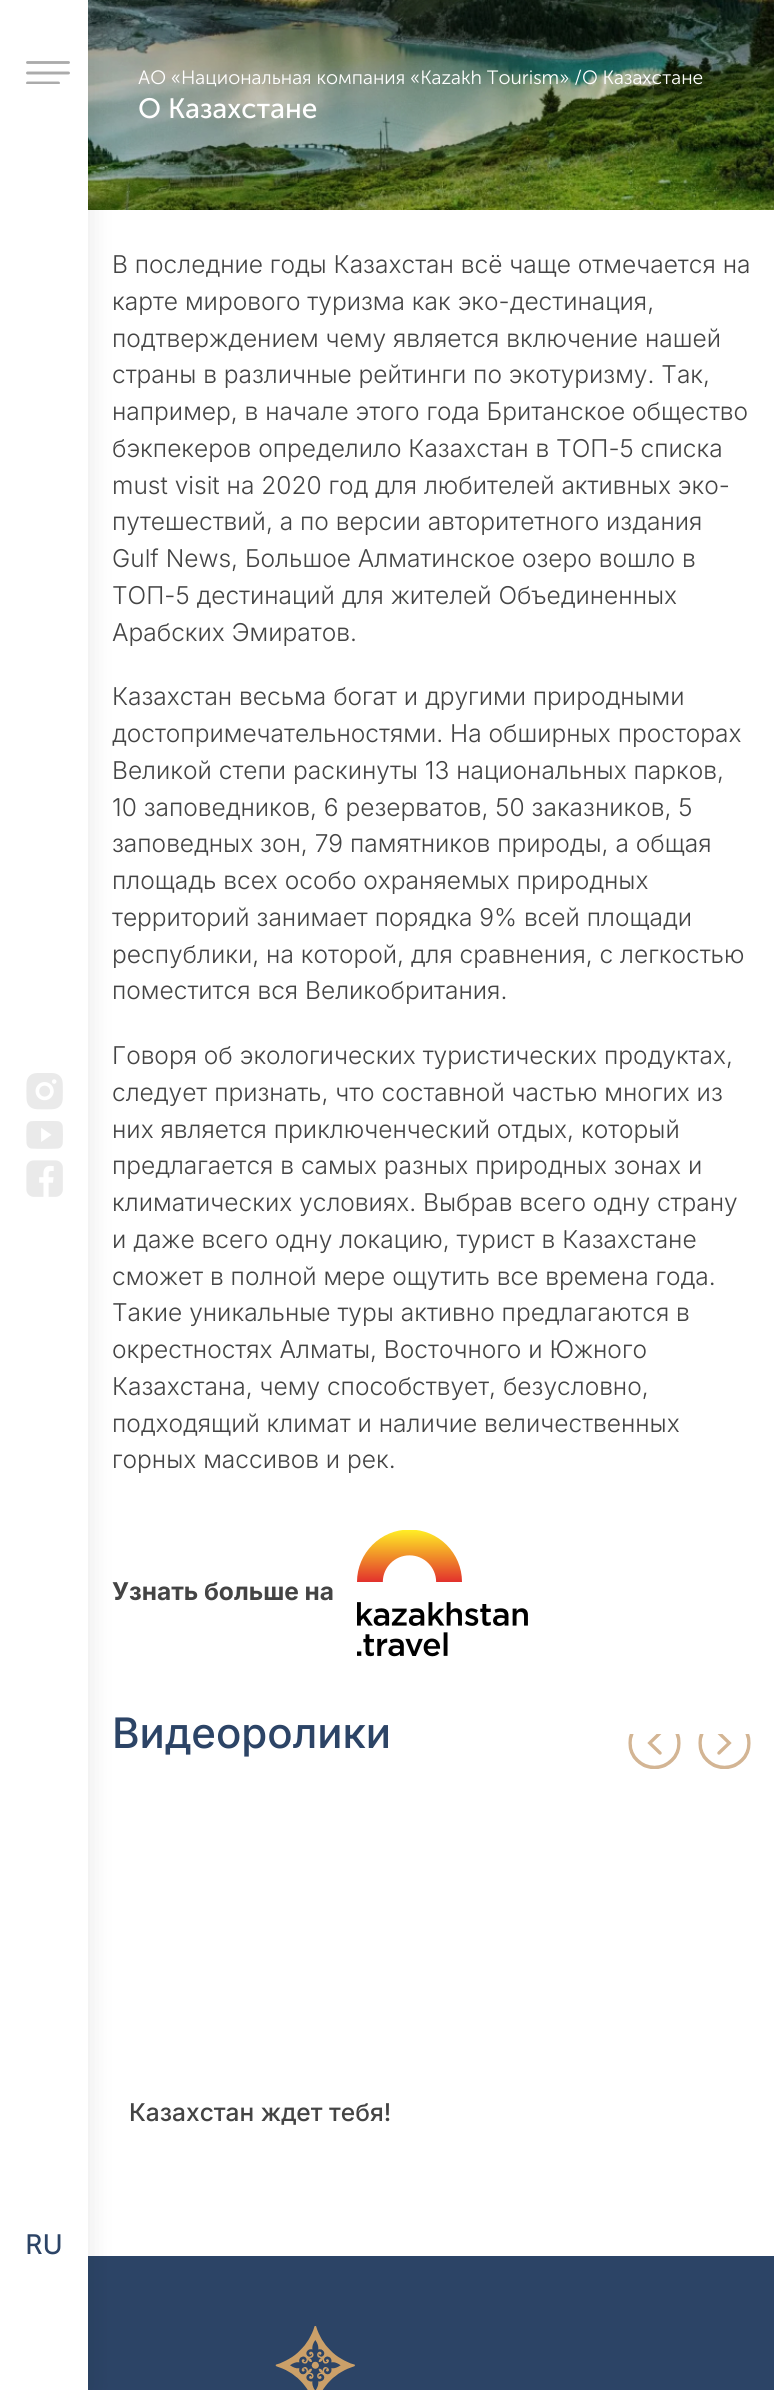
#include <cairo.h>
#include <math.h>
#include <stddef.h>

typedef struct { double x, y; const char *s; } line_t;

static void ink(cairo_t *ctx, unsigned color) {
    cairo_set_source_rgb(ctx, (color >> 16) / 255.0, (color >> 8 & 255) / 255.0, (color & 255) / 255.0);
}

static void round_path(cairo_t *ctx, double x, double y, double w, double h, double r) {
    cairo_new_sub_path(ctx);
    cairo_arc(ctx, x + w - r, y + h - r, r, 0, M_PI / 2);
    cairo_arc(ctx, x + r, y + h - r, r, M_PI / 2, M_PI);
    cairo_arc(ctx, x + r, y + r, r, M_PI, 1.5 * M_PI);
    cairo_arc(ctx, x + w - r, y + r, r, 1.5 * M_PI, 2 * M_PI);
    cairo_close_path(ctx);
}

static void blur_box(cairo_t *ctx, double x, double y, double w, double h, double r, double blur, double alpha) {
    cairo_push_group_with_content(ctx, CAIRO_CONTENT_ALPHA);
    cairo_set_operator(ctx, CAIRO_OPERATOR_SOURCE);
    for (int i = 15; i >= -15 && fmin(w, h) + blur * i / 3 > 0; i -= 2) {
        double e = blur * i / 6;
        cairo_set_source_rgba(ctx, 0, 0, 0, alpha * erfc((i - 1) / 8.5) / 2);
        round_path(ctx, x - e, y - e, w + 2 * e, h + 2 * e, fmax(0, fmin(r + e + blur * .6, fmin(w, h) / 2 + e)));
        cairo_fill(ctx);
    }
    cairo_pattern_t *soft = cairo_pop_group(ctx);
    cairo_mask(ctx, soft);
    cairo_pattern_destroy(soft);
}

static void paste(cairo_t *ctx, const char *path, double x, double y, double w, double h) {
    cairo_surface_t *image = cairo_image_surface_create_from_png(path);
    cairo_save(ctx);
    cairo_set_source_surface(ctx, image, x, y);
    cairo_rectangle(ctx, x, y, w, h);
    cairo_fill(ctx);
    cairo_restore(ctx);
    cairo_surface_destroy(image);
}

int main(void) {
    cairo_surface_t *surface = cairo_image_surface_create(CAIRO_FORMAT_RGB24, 774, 2390);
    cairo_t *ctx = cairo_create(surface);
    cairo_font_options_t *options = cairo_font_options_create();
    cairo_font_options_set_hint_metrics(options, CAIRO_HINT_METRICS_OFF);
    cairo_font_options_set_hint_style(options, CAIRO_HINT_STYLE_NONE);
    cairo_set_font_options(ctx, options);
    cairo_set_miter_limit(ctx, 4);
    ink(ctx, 0xFFFFFF);
    cairo_paint(ctx);
    paste(ctx, "media/1.png", 88, 0, 686, 210);
    cairo_select_font_face(ctx, "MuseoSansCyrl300", CAIRO_FONT_SLANT_NORMAL, CAIRO_FONT_WEIGHT_NORMAL);
    cairo_set_font_size(ctx, 19.25);
    ink(ctx, 0xFFFFFF);
    cairo_move_to(ctx, 138, 84);
    cairo_show_text(ctx, "АО «Национальная компания «Kazakh Tourism» /О Казахстане");
    cairo_select_font_face(ctx, "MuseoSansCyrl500", CAIRO_FONT_SLANT_NORMAL, CAIRO_FONT_WEIGHT_NORMAL);
    cairo_set_font_size(ctx, 28);
    cairo_move_to(ctx, 138, 118);
    cairo_show_text(ctx, "О Казахстане");
    cairo_select_font_face(ctx, "Inter Light", CAIRO_FONT_SLANT_NORMAL, CAIRO_FONT_WEIGHT_NORMAL);
    cairo_set_font_size(ctx, 24.5);
    ink(ctx, 0x444444);
    {
        static const line_t items[] = {
            {112, 273, "В последние годы Казахстан всё чаще отмечается на"},
            {112, 310, "карте мирового туризма как эко-дестинация,"},
            {112, 347, "подтверждением чему является включение нашей"},
            {112, 383, "страны в различные рейтинги по экотуризму. Так,"},
            {112, 420, "например, в начале этого года Британское общество"},
            {112, 457, "бэкпекеров определило Казахстан в ТОП-5 списка"},
            {112, 494, "must visit на 2020 год для любителей активных эко-"},
            {112, 530, "путешествий, а по версии авторитетного издания"},
            {112, 567, "Gulf News, Большое Алматинское озеро вошло в"},
            {112, 604, "ТОП-5 дестинаций для жителей Объединенных"},
            {112, 641, "Арабских Эмиратов."},
            {112, 705, "Казахстан весьма богат и другими природными"},
            {112, 742, "достопримечательностями. На обширных просторах"},
            {112, 779, "Великой степи раскинуты 13 национальных парков,"},
            {112, 816, "10 заповедников, 6 резерватов, 50 заказников, 5"},
            {112, 852, "заповедных зон, 79 памятников природы, а общая"},
            {112, 889, "площадь всех особо охраняемых природных"},
            {112, 926, "территорий занимает порядка 9% всей площади"},
            {112, 963, "республики, на которой, для сравнения, с легкостью"},
            {112, 999, "поместится вся Великобритания."},
            {112, 1064, "Говоря об экологических туристических продуктах,"},
            {112, 1101, "следует признать, что составной частью многих из"},
            {112, 1138, "них является приключенческий отдых, который"},
            {112, 1174, "предлагается в самых разных природных зонах и"},
            {112, 1211, "климатических условиях. Выбрав всего одну страну"},
            {112, 1248, "и даже всего одну локацию, турист в Казахстане"},
            {112, 1285, "сможет в полной мере ощутить все времена года."},
            {112, 1321, "Такие уникальные туры активно предлагаются в"},
            {112, 1358, "окрестностях Алматы, Восточного и Южного"},
            {112, 1395, "Казахстана, чему способствует, безусловно,"},
            {112, 1432, "подходящий климат и наличие величественных"},
            {112, 1468, "горных массивов и рек."},
        };
        for (size_t i = 0; i < sizeof items / sizeof *items; i++) {
            cairo_move_to(ctx, items[i].x, items[i].y);
            cairo_show_text(ctx, items[i].s);
        }
    }
    cairo_select_font_face(ctx, "Inter", CAIRO_FONT_SLANT_NORMAL, CAIRO_FONT_WEIGHT_BOLD);
    cairo_move_to(ctx, 112, 1600);
    cairo_show_text(ctx, "Узнать больше на");
    paste(ctx, "media/2.png", 357, 1530, 171, 127);
    cairo_select_font_face(ctx, "Inter Medium", CAIRO_FONT_SLANT_NORMAL, CAIRO_FONT_WEIGHT_NORMAL);
    cairo_set_font_size(ctx, 42);
    ink(ctx, 0x2C4466);
    cairo_move_to(ctx, 112, 1748);
    cairo_show_text(ctx, "Видеоролики");
    paste(ctx, "media/3.png", 628, 1734, 53, 35);
    paste(ctx, "media/4.png", 698, 1734, 53, 35);
    cairo_set_font_size(ctx, 24.5);
    ink(ctx, 0x444444);
    cairo_move_to(ctx, 129, 2121);
    cairo_show_text(ctx, "Казахстан ждет тебя!");
    ink(ctx, 0x2C4466);
    cairo_rectangle(ctx, 88, 2256, 686, 134);
    cairo_fill(ctx);
    ink(ctx, 0x000000);
    blur_box(ctx, 0, 0, 88, 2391, 0, 13, 0.1);
    ink(ctx, 0xFFFFFF);
    cairo_rectangle(ctx, 0, 0, 88, 2390);
    cairo_fill(ctx);
    cairo_save(ctx);
    cairo_rectangle(ctx, 26, 61, 44, 23);
    cairo_clip(ctx);
    cairo_new_path(ctx);
    cairo_move_to(ctx, 27.5, 62.5);
    cairo_line_to(ctx, 68.5, 62.5);
    cairo_move_to(ctx, 27.5, 73);
    cairo_line_to(ctx, 68.5, 73);
    cairo_move_to(ctx, 27.5, 83);
    cairo_line_to(ctx, 58.5, 83);
    ink(ctx, 0xABABAB);
    cairo_set_line_width(ctx, 2.9);
    cairo_set_line_cap(ctx, CAIRO_LINE_CAP_ROUND);
    cairo_stroke(ctx);
    cairo_restore(ctx);
    paste(ctx, "media/5.png", 26, 1073, 37, 37);
    paste(ctx, "media/6.png", 26, 1121, 37, 28);
    paste(ctx, "media/7.png", 26, 1160, 37, 37);
    cairo_select_font_face(ctx, "MuseoSansCyrl500", CAIRO_FONT_SLANT_NORMAL, CAIRO_FONT_WEIGHT_NORMAL);
    cairo_set_font_size(ctx, 28);
    ink(ctx, 0x2C4466);
    cairo_move_to(ctx, 25, 2254);
    cairo_show_text(ctx, "RU");
    paste(ctx, "media/8.png", 275, 2326, 80, 64);
    cairo_surface_write_to_png(surface, "image.png");
    cairo_font_options_destroy(options);
    cairo_destroy(ctx);
    cairo_surface_destroy(surface);
    return 0;
}
